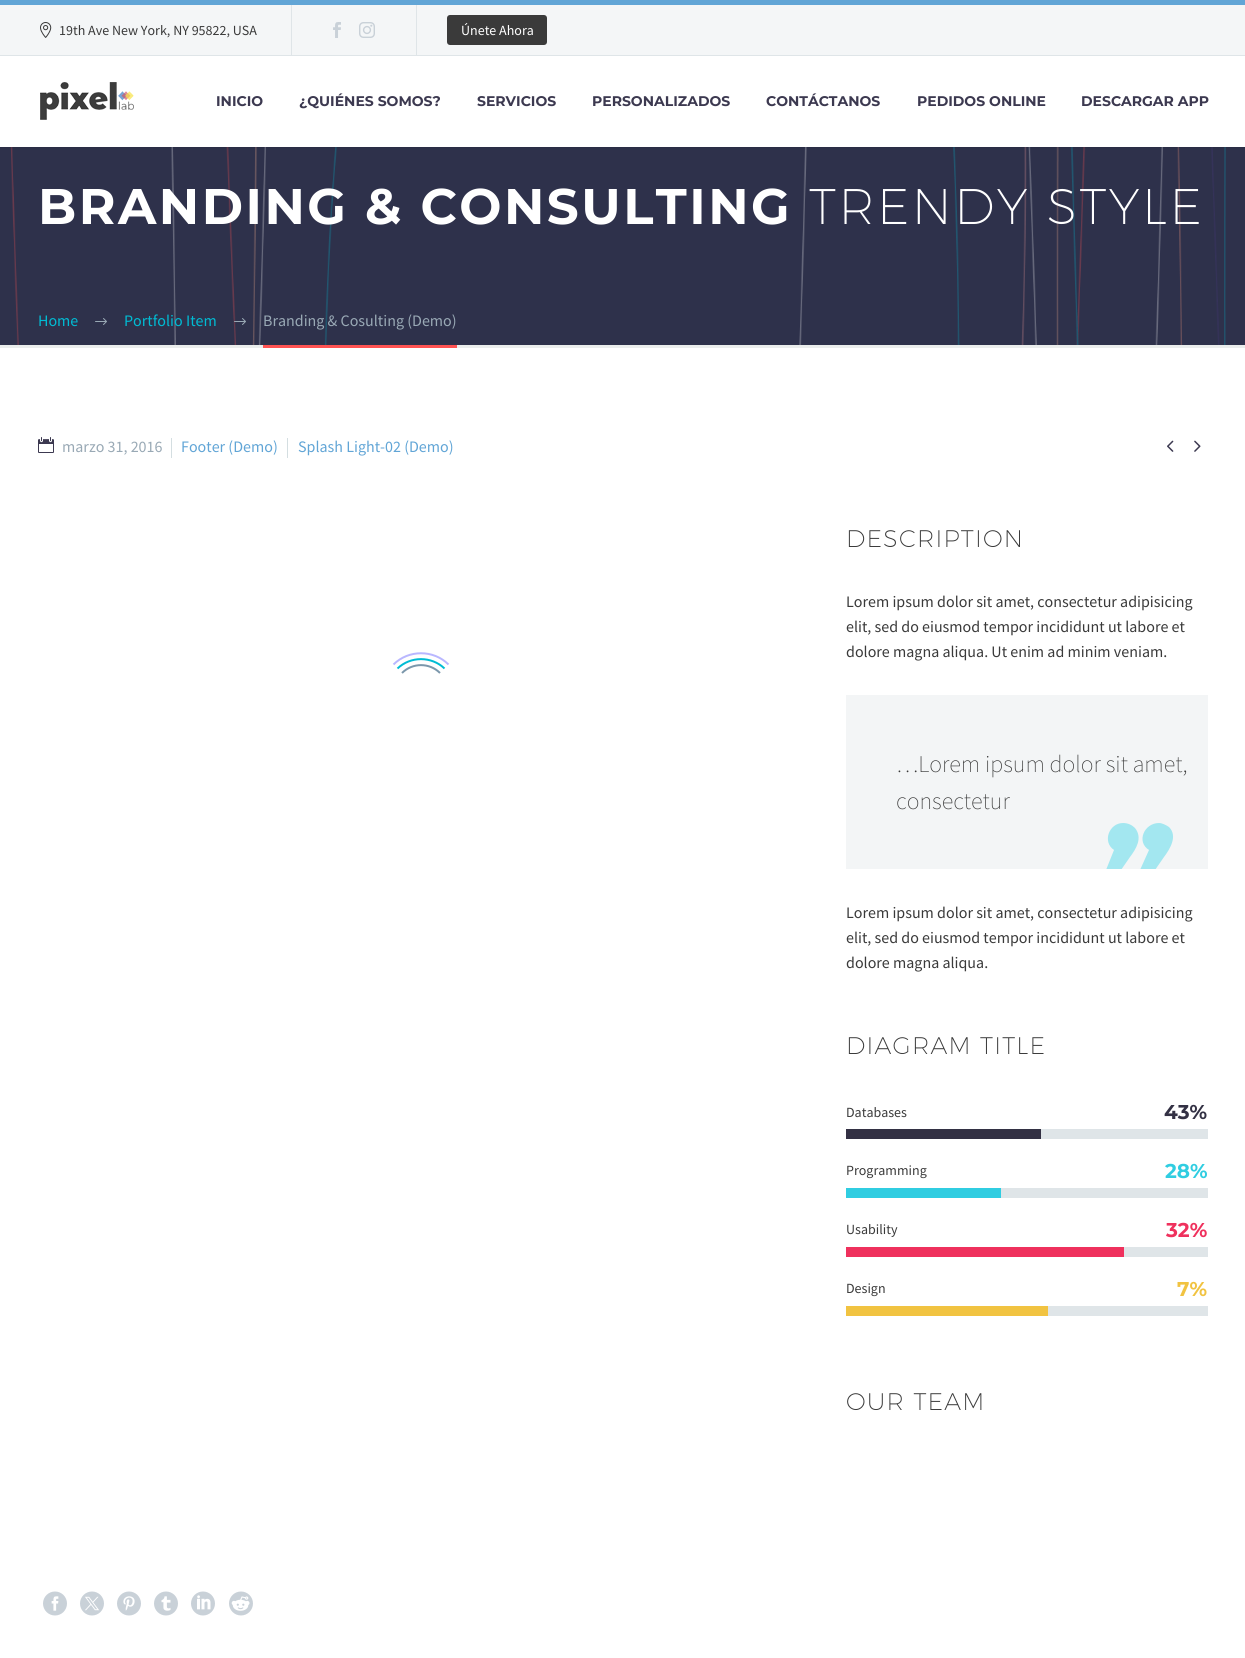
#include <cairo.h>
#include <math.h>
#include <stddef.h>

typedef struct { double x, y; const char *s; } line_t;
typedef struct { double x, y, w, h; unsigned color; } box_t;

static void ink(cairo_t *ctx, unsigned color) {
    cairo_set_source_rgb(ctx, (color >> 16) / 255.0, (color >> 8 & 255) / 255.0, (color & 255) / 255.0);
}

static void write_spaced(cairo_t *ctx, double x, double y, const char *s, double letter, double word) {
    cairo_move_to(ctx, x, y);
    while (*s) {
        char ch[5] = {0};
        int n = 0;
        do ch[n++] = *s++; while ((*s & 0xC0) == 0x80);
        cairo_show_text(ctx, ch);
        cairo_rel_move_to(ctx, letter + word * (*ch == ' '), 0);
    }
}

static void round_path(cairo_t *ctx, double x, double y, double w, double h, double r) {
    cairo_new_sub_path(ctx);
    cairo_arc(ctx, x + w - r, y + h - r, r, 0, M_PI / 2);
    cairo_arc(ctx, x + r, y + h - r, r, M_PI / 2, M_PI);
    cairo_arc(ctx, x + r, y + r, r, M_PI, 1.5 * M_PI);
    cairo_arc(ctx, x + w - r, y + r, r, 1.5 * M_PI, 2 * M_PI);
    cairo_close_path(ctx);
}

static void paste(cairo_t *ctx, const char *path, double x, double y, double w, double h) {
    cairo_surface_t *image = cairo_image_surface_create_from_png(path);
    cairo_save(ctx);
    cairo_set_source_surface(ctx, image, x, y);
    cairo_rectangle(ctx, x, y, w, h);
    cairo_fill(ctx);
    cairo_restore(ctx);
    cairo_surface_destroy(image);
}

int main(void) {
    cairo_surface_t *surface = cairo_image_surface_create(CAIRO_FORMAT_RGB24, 1245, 1658);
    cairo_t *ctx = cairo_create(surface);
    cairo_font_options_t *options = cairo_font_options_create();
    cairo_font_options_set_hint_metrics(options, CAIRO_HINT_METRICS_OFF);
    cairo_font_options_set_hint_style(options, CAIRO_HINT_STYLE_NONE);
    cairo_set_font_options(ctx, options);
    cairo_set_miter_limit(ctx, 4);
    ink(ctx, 0xFFFFFF);
    cairo_paint(ctx);
    {
        static const box_t items[] = {
            {0, 5, 1245, 50, 0xF4F6F7},
            {0, 0, 1245, 5, 0x61A5D6},
            {0, 55, 1245, 1, 0xDFE5E8},
        };
        for (size_t i = 0; i < sizeof items / sizeof *items; i++) {
            ink(ctx, items[i].color);
            cairo_rectangle(ctx, items[i].x, items[i].y, items[i].w, items[i].h);
            cairo_fill(ctx);
        }
    }
    paste(ctx, "media/1.png", 40, 22, 12, 16);
    cairo_select_font_face(ctx, "Source Sans Pro", CAIRO_FONT_SLANT_NORMAL, CAIRO_FONT_WEIGHT_NORMAL);
    cairo_set_font_size(ctx, 14);
    ink(ctx, 0x3A3A3A);
    cairo_move_to(ctx, 59, 35);
    cairo_show_text(ctx, "19th Ave New York, NY 95822, USA");
    ink(ctx, 0xDFE5E8);
    cairo_rectangle(ctx, 291, 5, 1, 50);
    cairo_fill(ctx);
    paste(ctx, "media/2.png", 333, 22, 8, 16);
    paste(ctx, "media/3.png", 359, 22, 16, 16);
    cairo_rectangle(ctx, 416, 5, 1, 50);
    cairo_fill(ctx);
    ink(ctx, 0x3A3A3A);
    round_path(ctx, 447, 15, 100, 30, 3);
    cairo_fill(ctx);
    ink(ctx, 0xFFFFFF);
    cairo_move_to(ctx, 461, 35);
    cairo_show_text(ctx, "Únete Ahora");
    paste(ctx, "media/4.png", 40, 82, 94, 38);
    cairo_select_font_face(ctx, "Montserrat", CAIRO_FONT_SLANT_NORMAL, CAIRO_FONT_WEIGHT_BOLD);
    ink(ctx, 0x3C3950);
    {
        static const line_t items[] = {
            {216, 106, "INICIO"},
            {299, 106, "¿QUIÉNES SOMOS?"},
            {477, 106, "SERVICIOS"},
            {592, 106, "PERSONALIZADOS"},
            {766, 106, "CONTÁCTANOS"},
            {917, 106, "PEDIDOS ONLINE"},
            {1081, 106, "DESCARGAR APP"},
        };
        for (size_t i = 0; i < sizeof items / sizeof *items; i++) {
            cairo_move_to(ctx, items[i].x, items[i].y);
            cairo_show_text(ctx, items[i].s);
        }
    }
    paste(ctx, "media/5.png", 0, 147, 1245, 198);
    ink(ctx, 0xEAEDEC);
    cairo_rectangle(ctx, 0, 345, 1245, 3);
    cairo_fill(ctx);
    cairo_set_font_size(ctx, 50);
    ink(ctx, 0xFFFFFF);
    write_spaced(ctx, 38, 224, "BRANDING & CONSULTING", 2.5, 0);
    cairo_select_font_face(ctx, "Montserrat ExtraLight", CAIRO_FONT_SLANT_NORMAL, CAIRO_FONT_WEIGHT_NORMAL);
    write_spaced(ctx, 809, 224, "TRENDY STYLE", 2.5, 0);
    cairo_select_font_face(ctx, "Source Sans Pro", CAIRO_FONT_SLANT_NORMAL, CAIRO_FONT_WEIGHT_NORMAL);
    cairo_set_font_size(ctx, 16);
    ink(ctx, 0x00BCD4);
    cairo_move_to(ctx, 38, 326);
    cairo_show_text(ctx, "Home");
    paste(ctx, "media/6.png", 95, 318, 12, 7);
    cairo_move_to(ctx, 124, 326);
    cairo_show_text(ctx, "Portfolio Item");
    paste(ctx, "media/7.png", 234, 318, 12, 7);
    ink(ctx, 0xFF5252);
    cairo_rectangle(ctx, 263, 345, 194, 3);
    cairo_fill(ctx);
    ink(ctx, 0x99A9B5);
    cairo_move_to(ctx, 263, 326);
    cairo_show_text(ctx, "Branding & Cosulting (Demo)");
    paste(ctx, "media/8.png", 38, 437, 16, 16);
    cairo_move_to(ctx, 62, 452);
    cairo_show_text(ctx, "marzo 31, 2016");
    ink(ctx, 0xD4DEE1);
    cairo_rectangle(ctx, 171, 438, 1, 20);
    cairo_fill(ctx);
    ink(ctx, 0x61A5D6);
    cairo_move_to(ctx, 181, 452);
    cairo_show_text(ctx, "Footer (Demo)");
    ink(ctx, 0xD4DEE1);
    cairo_rectangle(ctx, 287, 438, 1, 20);
    cairo_fill(ctx);
    ink(ctx, 0x61A5D6);
    cairo_move_to(ctx, 298, 452);
    cairo_show_text(ctx, "Splash Light-02 (Demo)");
    paste(ctx, "media/9.png", 1167, 440, 7, 12);
    paste(ctx, "media/10.png", 1194, 440, 7, 12);
    cairo_new_path(ctx);
    cairo_move_to(ctx, 393.5, 664.5);
    cairo_curve_to(ctx, 408.5, 649.5, 433.5, 649.5, 448.5, 664.5);
    ink(ctx, 0xB9B7FF);
    cairo_stroke(ctx);
    cairo_new_path(ctx);
    cairo_move_to(ctx, 397.5, 668.5);
    cairo_curve_to(ctx, 410.5, 656, 431.5, 656, 444.5, 668.5);
    ink(ctx, 0x00BCD4);
    cairo_stroke(ctx);
    cairo_new_path(ctx);
    cairo_move_to(ctx, 402, 673);
    cairo_curve_to(ctx, 412.5, 662.5, 429.5, 662.5, 440, 673);
    ink(ctx, 0x7B97AB);
    cairo_stroke(ctx);
    cairo_select_font_face(ctx, "Montserrat ExtraLight", CAIRO_FONT_SLANT_NORMAL, CAIRO_FONT_WEIGHT_NORMAL);
    cairo_set_font_size(ctx, 24);
    ink(ctx, 0x3A3A3A);
    write_spaced(ctx, 846, 547, "DESCRIPTION", 1.25, 0);
    cairo_select_font_face(ctx, "Source Sans Pro", CAIRO_FONT_SLANT_NORMAL, CAIRO_FONT_WEIGHT_NORMAL);
    cairo_set_font_size(ctx, 16);
    {
        static const line_t items[] = {
            {846, 607, "Lorem ipsum dolor sit amet, consectetur adipisicing"},
            {846, 632, "elit, sed do eiusmod tempor incididunt ut labore et"},
            {846, 657, "dolore magna aliqua. Ut enim ad minim veniam."},
        };
        for (size_t i = 0; i < sizeof items / sizeof *items; i++) {
            cairo_move_to(ctx, items[i].x, items[i].y);
            cairo_show_text(ctx, items[i].s);
        }
    }
    ink(ctx, 0xF3F5F6);
    cairo_rectangle(ctx, 846, 695, 362, 174);
    cairo_fill(ctx);
    cairo_select_font_face(ctx, "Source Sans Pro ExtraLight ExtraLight", CAIRO_FONT_SLANT_NORMAL, CAIRO_FONT_WEIGHT_NORMAL);
    cairo_set_font_size(ctx, 24);
    ink(ctx, 0x3A3A3A);
    cairo_move_to(ctx, 896, 772);
    cairo_show_text(ctx, "…Lorem ipsum dolor sit amet,");
    cairo_move_to(ctx, 896, 809);
    cairo_show_text(ctx, "consectetur");
    cairo_save(ctx);
    cairo_rectangle(ctx, 846, 695, 362, 174);
    cairo_clip(ctx);
    ink(ctx, 0xA3E7F0);
    cairo_new_path(ctx);
    cairo_move_to(ctx, 1169, 827);
    cairo_curve_to(ctx, 1166, 825, 1162, 823, 1159, 823);
    cairo_curve_to(ctx, 1144, 823, 1136, 842, 1149, 850);
    cairo_line_to(ctx, 1140, 870);
    cairo_line_to(ctx, 1155, 870);
    cairo_line_to(ctx, 1164, 857);
    cairo_curve_to(ctx, 1170, 849, 1178, 836, 1169, 827);
    cairo_close_path(ctx);
    cairo_move_to(ctx, 1123, 823);
    cairo_curve_to(ctx, 1109, 823, 1102, 842, 1114, 850);
    cairo_line_to(ctx, 1106, 870);
    cairo_line_to(ctx, 1121, 870);
    cairo_line_to(ctx, 1130, 857);
    cairo_curve_to(ctx, 1136, 849, 1143, 838, 1135, 828);
    cairo_curve_to(ctx, 1132, 825, 1128, 823, 1123, 823);
    cairo_close_path(ctx);
    cairo_fill(ctx);
    cairo_restore(ctx);
    cairo_select_font_face(ctx, "Source Sans Pro", CAIRO_FONT_SLANT_NORMAL, CAIRO_FONT_WEIGHT_NORMAL);
    cairo_set_font_size(ctx, 16);
    {
        static const line_t items[] = {
            {846, 918, "Lorem ipsum dolor sit amet, consectetur adipisicing"},
            {846, 943, "elit, sed do eiusmod tempor incididunt ut labore et"},
            {846, 968, "dolore magna aliqua."},
        };
        for (size_t i = 0; i < sizeof items / sizeof *items; i++) {
            cairo_move_to(ctx, items[i].x, items[i].y);
            cairo_show_text(ctx, items[i].s);
        }
    }
    cairo_select_font_face(ctx, "Montserrat ExtraLight", CAIRO_FONT_SLANT_NORMAL, CAIRO_FONT_WEIGHT_NORMAL);
    cairo_set_font_size(ctx, 24);
    write_spaced(ctx, 846, 1054, "DIAGRAM TITLE", 1.25, 0);
    cairo_select_font_face(ctx, "Source Sans Pro", CAIRO_FONT_SLANT_NORMAL, CAIRO_FONT_WEIGHT_NORMAL);
    cairo_set_font_size(ctx, 14);
    cairo_move_to(ctx, 846, 1117);
    cairo_show_text(ctx, "Databases");
    cairo_select_font_face(ctx, "Montserrat", CAIRO_FONT_SLANT_NORMAL, CAIRO_FONT_WEIGHT_BOLD);
    cairo_set_font_size(ctx, 20);
    ink(ctx, 0x333144);
    cairo_move_to(ctx, 1164, 1119);
    cairo_show_text(ctx, "43%");
    ink(ctx, 0xDFE5E8);
    cairo_rectangle(ctx, 1041, 1129, 167, 10);
    cairo_fill(ctx);
    ink(ctx, 0x333144);
    cairo_rectangle(ctx, 846, 1129, 195, 10);
    cairo_fill(ctx);
    cairo_select_font_face(ctx, "Source Sans Pro", CAIRO_FONT_SLANT_NORMAL, CAIRO_FONT_WEIGHT_NORMAL);
    cairo_set_font_size(ctx, 14);
    ink(ctx, 0x3A3A3A);
    cairo_move_to(ctx, 846, 1175);
    cairo_show_text(ctx, "Programming");
    cairo_select_font_face(ctx, "Montserrat", CAIRO_FONT_SLANT_NORMAL, CAIRO_FONT_WEIGHT_BOLD);
    cairo_set_font_size(ctx, 20);
    ink(ctx, 0x30CDE1);
    cairo_move_to(ctx, 1165, 1178);
    cairo_show_text(ctx, "28%");
    ink(ctx, 0xDFE5E8);
    cairo_rectangle(ctx, 1001, 1188, 207, 10);
    cairo_fill(ctx);
    ink(ctx, 0x30CDE1);
    cairo_rectangle(ctx, 846, 1188, 155, 10);
    cairo_fill(ctx);
    cairo_select_font_face(ctx, "Source Sans Pro", CAIRO_FONT_SLANT_NORMAL, CAIRO_FONT_WEIGHT_NORMAL);
    cairo_set_font_size(ctx, 14);
    ink(ctx, 0x3A3A3A);
    cairo_move_to(ctx, 846, 1234);
    cairo_show_text(ctx, "Usability");
    cairo_select_font_face(ctx, "Montserrat", CAIRO_FONT_SLANT_NORMAL, CAIRO_FONT_WEIGHT_BOLD);
    cairo_set_font_size(ctx, 20);
    ink(ctx, 0xEF315D);
    cairo_move_to(ctx, 1166, 1237);
    cairo_show_text(ctx, "32%");
    ink(ctx, 0xDFE5E8);
    cairo_rectangle(ctx, 1124, 1247, 84, 10);
    cairo_fill(ctx);
    ink(ctx, 0xEF315D);
    cairo_rectangle(ctx, 846, 1247, 278, 10);
    cairo_fill(ctx);
    cairo_select_font_face(ctx, "Source Sans Pro", CAIRO_FONT_SLANT_NORMAL, CAIRO_FONT_WEIGHT_NORMAL);
    cairo_set_font_size(ctx, 14);
    ink(ctx, 0x3A3A3A);
    cairo_move_to(ctx, 846, 1293);
    cairo_show_text(ctx, "Design");
    cairo_select_font_face(ctx, "Montserrat", CAIRO_FONT_SLANT_NORMAL, CAIRO_FONT_WEIGHT_BOLD);
    cairo_set_font_size(ctx, 20);
    ink(ctx, 0xF1C341);
    cairo_move_to(ctx, 1177, 1296);
    cairo_show_text(ctx, "7%");
    ink(ctx, 0xDFE5E8);
    cairo_rectangle(ctx, 1048, 1306, 160, 10);
    cairo_fill(ctx);
    ink(ctx, 0xF1C341);
    cairo_rectangle(ctx, 846, 1306, 202, 10);
    cairo_fill(ctx);
    cairo_select_font_face(ctx, "Montserrat ExtraLight", CAIRO_FONT_SLANT_NORMAL, CAIRO_FONT_WEIGHT_NORMAL);
    cairo_set_font_size(ctx, 24);
    ink(ctx, 0x3A3A3A);
    write_spaced(ctx, 846, 1410, "OUR TEAM", 1.25, 0);
    paste(ctx, "media/11.png", 43, 1591, 24, 25);
    paste(ctx, "media/12.png", 80, 1591, 24, 25);
    paste(ctx, "media/13.png", 117, 1591, 24, 25);
    paste(ctx, "media/14.png", 154, 1591, 24, 25);
    paste(ctx, "media/15.png", 191, 1591, 24, 25);
    paste(ctx, "media/16.png", 229, 1591, 24, 25);
    cairo_surface_write_to_png(surface, "image.png");
    cairo_font_options_destroy(options);
    cairo_destroy(ctx);
    cairo_surface_destroy(surface);
    return 0;
}
